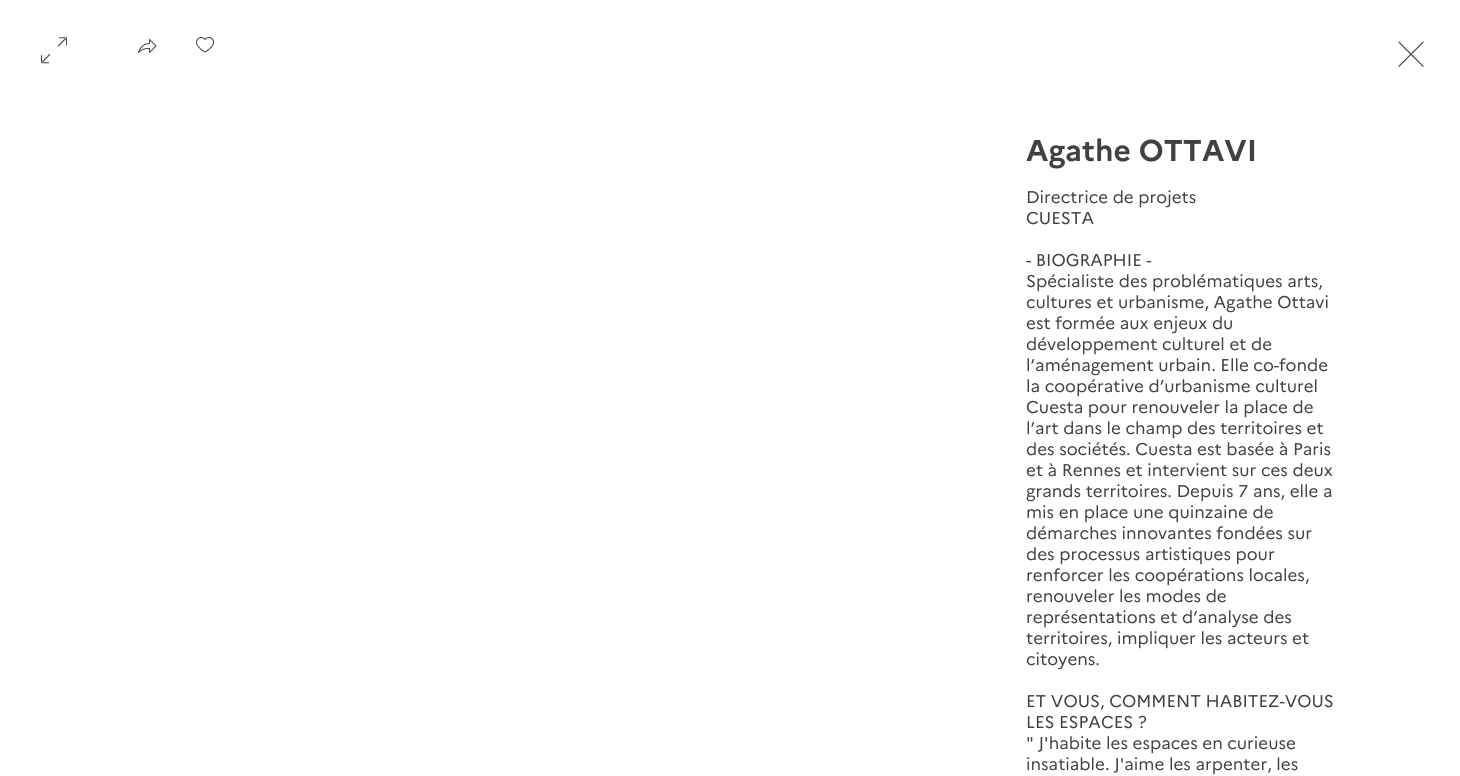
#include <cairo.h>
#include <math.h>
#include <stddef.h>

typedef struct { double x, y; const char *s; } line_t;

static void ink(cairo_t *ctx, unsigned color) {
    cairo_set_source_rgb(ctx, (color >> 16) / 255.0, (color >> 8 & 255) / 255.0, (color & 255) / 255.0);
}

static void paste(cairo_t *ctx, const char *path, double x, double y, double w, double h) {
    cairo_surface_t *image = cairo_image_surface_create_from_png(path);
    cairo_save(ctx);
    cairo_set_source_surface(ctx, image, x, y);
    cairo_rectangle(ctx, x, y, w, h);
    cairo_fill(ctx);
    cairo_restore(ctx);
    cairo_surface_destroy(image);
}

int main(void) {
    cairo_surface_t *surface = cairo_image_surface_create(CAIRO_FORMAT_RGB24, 1460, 776);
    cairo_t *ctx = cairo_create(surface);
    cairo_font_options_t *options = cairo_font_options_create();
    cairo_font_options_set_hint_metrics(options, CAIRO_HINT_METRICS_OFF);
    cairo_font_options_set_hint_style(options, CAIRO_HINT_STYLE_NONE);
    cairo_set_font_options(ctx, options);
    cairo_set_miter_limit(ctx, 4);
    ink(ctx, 0xFFFFFF);
    cairo_paint(ctx);
    paste(ctx, "media/1.png", 41, 37, 26, 27);
    paste(ctx, "media/2.png", 138, 39, 19, 14);
    paste(ctx, "media/3.png", 196, 37, 18, 16);
    paste(ctx, "media/4.png", 1398, 41, 26, 26);
    cairo_select_font_face(ctx, "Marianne", CAIRO_FONT_SLANT_NORMAL, CAIRO_FONT_WEIGHT_BOLD);
    cairo_set_font_size(ctx, 30);
    ink(ctx, 0x414141);
    cairo_move_to(ctx, 1026, 161);
    cairo_show_text(ctx, "Agathe OTTAVI");
    cairo_select_font_face(ctx, "Marianne", CAIRO_FONT_SLANT_NORMAL, CAIRO_FONT_WEIGHT_NORMAL);
    cairo_set_font_size(ctx, 17);
    {
        static const line_t items[] = {
            {1026, 203, "Directrice de projets"},
            {1026, 224, "CUESTA"},
            {1026, 266, "- BIOGRAPHIE -"},
            {1026, 287, "Spécialiste des problématiques arts,"},
            {1026, 308, "cultures et urbanisme, Agathe Ottavi"},
            {1026, 329, "est formée aux enjeux du"},
            {1026, 350, "développement culturel et de"},
            {1026, 371, "l’aménagement urbain. Elle co-fonde"},
            {1026, 392, "la coopérative d’urbanisme culturel"},
            {1026, 413, "Cuesta pour renouveler la place de"},
            {1026, 434, "l’art dans le champ des territoires et"},
            {1026, 455, "des sociétés. Cuesta est basée à Paris"},
            {1026, 476, "et à Rennes et intervient sur ces deux"},
            {1026, 497, "grands territoires. Depuis 7 ans, elle a"},
            {1026, 518, "mis en place une quinzaine de"},
            {1026, 539, "démarches innovantes fondées sur"},
            {1026, 560, "des processus artistiques pour"},
            {1026, 581, "renforcer les coopérations locales,"},
            {1026, 602, "renouveler les modes de"},
            {1026, 623, "représentations et d’analyse des"},
            {1026, 644, "territoires, impliquer les acteurs et"},
            {1026, 665, "citoyens."},
            {1026, 707, "ET VOUS, COMMENT HABITEZ-VOUS"},
            {1026, 728, "LES ESPACES ?"},
            {1026, 749, "\" J'habite les espaces en curieuse"},
            {1026, 770, "insatiable. J'aime les arpenter, les"},
        };
        for (size_t i = 0; i < sizeof items / sizeof *items; i++) {
            cairo_move_to(ctx, items[i].x, items[i].y);
            cairo_show_text(ctx, items[i].s);
        }
    }
    cairo_surface_write_to_png(surface, "image.png");
    cairo_font_options_destroy(options);
    cairo_destroy(ctx);
    cairo_surface_destroy(surface);
    return 0;
}
